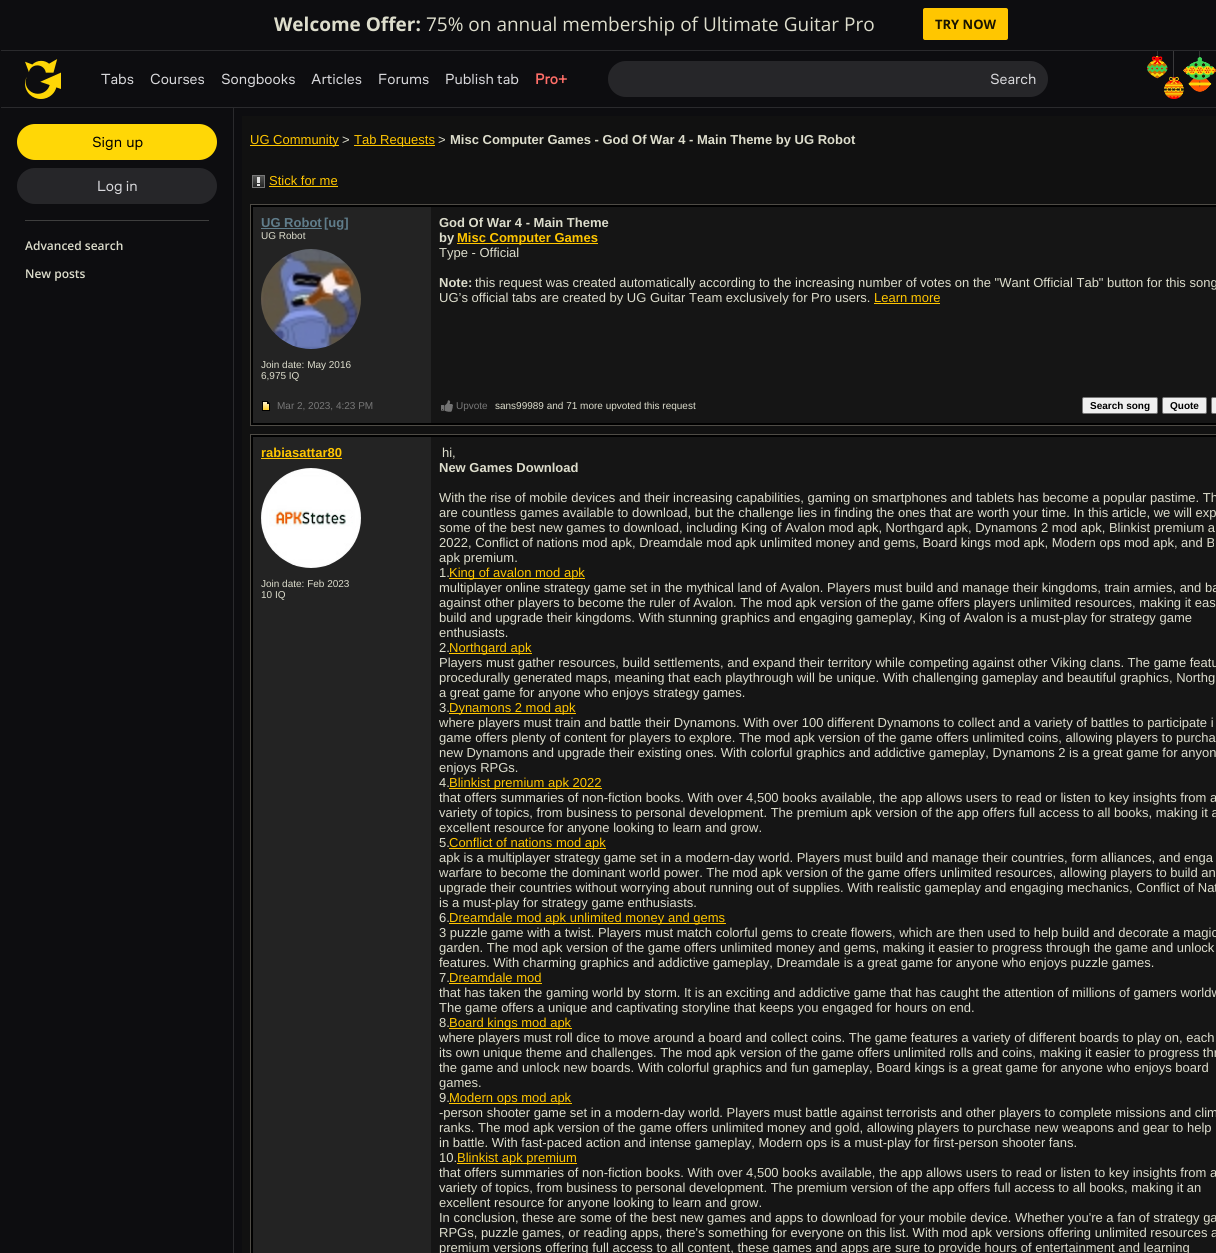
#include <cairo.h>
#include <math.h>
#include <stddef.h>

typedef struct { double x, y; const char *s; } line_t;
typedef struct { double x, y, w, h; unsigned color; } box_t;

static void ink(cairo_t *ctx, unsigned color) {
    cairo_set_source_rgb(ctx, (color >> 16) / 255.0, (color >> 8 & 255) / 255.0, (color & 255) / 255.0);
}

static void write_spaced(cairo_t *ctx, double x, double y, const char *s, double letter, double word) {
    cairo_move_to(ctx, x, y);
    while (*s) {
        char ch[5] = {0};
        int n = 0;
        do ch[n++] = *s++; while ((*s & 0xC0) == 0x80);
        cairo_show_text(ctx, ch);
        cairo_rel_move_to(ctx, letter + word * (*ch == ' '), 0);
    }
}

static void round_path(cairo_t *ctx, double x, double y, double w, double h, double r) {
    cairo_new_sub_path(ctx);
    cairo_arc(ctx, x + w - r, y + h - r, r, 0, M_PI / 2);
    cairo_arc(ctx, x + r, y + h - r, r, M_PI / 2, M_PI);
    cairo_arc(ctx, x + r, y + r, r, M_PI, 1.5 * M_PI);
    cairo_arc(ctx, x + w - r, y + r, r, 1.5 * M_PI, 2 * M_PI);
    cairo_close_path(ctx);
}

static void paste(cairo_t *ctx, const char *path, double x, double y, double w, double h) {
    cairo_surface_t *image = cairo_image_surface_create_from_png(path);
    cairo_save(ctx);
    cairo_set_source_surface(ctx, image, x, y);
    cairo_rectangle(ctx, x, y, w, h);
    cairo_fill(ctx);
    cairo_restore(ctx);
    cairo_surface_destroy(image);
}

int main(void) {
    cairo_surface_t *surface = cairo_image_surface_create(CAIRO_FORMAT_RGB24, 1216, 1253);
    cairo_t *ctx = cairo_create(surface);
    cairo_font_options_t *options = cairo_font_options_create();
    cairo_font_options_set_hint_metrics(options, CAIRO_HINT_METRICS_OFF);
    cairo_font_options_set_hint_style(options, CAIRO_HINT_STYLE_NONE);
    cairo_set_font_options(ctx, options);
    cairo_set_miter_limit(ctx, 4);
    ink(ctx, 0x0D0D10);
    cairo_paint(ctx);
    ink(ctx, 0x2A2A2D);
    cairo_rectangle(ctx, 1, 50, 1215, 1);
    cairo_fill(ctx);
    cairo_select_font_face(ctx, "Open Sans", CAIRO_FONT_SLANT_NORMAL, CAIRO_FONT_WEIGHT_BOLD);
    cairo_set_font_size(ctx, 19);
    ink(ctx, 0xDDDDCC);
    cairo_move_to(ctx, 274, 31);
    cairo_show_text(ctx, "Welcome Offer:");
    cairo_select_font_face(ctx, "Open Sans", CAIRO_FONT_SLANT_NORMAL, CAIRO_FONT_WEIGHT_NORMAL);
    cairo_move_to(ctx, 426, 31);
    cairo_show_text(ctx, "75% on annual membership of Ultimate Guitar Pro");
    ink(ctx, 0xFFC600);
    round_path(ctx, 923, 8, 85, 32, 2);
    cairo_fill(ctx);
    cairo_select_font_face(ctx, "Open Sans", CAIRO_FONT_SLANT_NORMAL, CAIRO_FONT_WEIGHT_BOLD);
    cairo_set_font_size(ctx, 13);
    ink(ctx, 0x1A1400);
    cairo_move_to(ctx, 935, 29);
    cairo_show_text(ctx, "TRY NOW");
    ink(ctx, 0x2A2A2D);
    cairo_rectangle(ctx, 1, 107, 1215, 1);
    cairo_fill(ctx);
    paste(ctx, "media/1.png", 25, 59, 36, 40);
    cairo_select_font_face(ctx, "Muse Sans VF", CAIRO_FONT_SLANT_NORMAL, CAIRO_FONT_WEIGHT_NORMAL);
    cairo_set_font_size(ctx, 15);
    ink(ctx, 0xD9D9DC);
    {
        static const line_t items[] = {
            {101, 84, "Tabs"},
            {150, 84, "Courses"},
            {221, 84, "Songbooks"},
            {311, 84, "Articles"},
            {378, 84, "Forums"},
            {445, 84, "Publish tab"},
        };
        for (size_t i = 0; i < sizeof items / sizeof *items; i++) {
            cairo_move_to(ctx, items[i].x, items[i].y);
            cairo_show_text(ctx, items[i].s);
        }
    }
    cairo_select_font_face(ctx, "Muse Sans VF", CAIRO_FONT_SLANT_NORMAL, CAIRO_FONT_WEIGHT_BOLD);
    ink(ctx, 0xFF6E68);
    cairo_move_to(ctx, 535, 84);
    cairo_show_text(ctx, "Pro+");
    ink(ctx, 0x262629);
    round_path(ctx, 608, 61, 440, 36, 18);
    cairo_fill(ctx);
    cairo_select_font_face(ctx, "Muse Sans VF", CAIRO_FONT_SLANT_NORMAL, CAIRO_FONT_WEIGHT_NORMAL);
    ink(ctx, 0xD9D9DC);
    cairo_move_to(ctx, 990, 84);
    cairo_show_text(ctx, "Search");
    paste(ctx, "media/2.png", 1147, 51, 69, 48);
    ink(ctx, 0xFFD706);
    round_path(ctx, 17, 124, 200, 36, 18);
    cairo_fill(ctx);
    ink(ctx, 0x000000);
    write_spaced(ctx, 92, 147, "Sign up", 0, 1);
    ink(ctx, 0x262629);
    round_path(ctx, 17, 168, 200, 36, 18);
    cairo_fill(ctx);
    ink(ctx, 0xD9D9DC);
    cairo_move_to(ctx, 97, 191);
    cairo_show_text(ctx, "Log in");
    ink(ctx, 0x3E3E3E);
    cairo_rectangle(ctx, 25, 220, 184, 1);
    cairo_fill(ctx);
    cairo_select_font_face(ctx, "Open Sans SemiBold", CAIRO_FONT_SLANT_NORMAL, CAIRO_FONT_WEIGHT_NORMAL);
    cairo_set_font_size(ctx, 12);
    ink(ctx, 0xDDDDCC);
    cairo_move_to(ctx, 25, 250);
    cairo_show_text(ctx, "Advanced search");
    cairo_move_to(ctx, 25, 278);
    cairo_show_text(ctx, "New posts");
    {
        static const box_t items[] = {
            {233, 108, 1, 1145, 0x2A2A2D},
            {242, 116, 974, 1137, 0x111111},
            {250, 145, 89, 1, 0xFFC600},
        };
        for (size_t i = 0; i < sizeof items / sizeof *items; i++) {
            ink(ctx, items[i].color);
            cairo_rectangle(ctx, items[i].x, items[i].y, items[i].w, items[i].h);
            cairo_fill(ctx);
        }
    }
    cairo_select_font_face(ctx, "Liberation Sans", CAIRO_FONT_SLANT_NORMAL, CAIRO_FONT_WEIGHT_NORMAL);
    cairo_set_font_size(ctx, 13);
    cairo_move_to(ctx, 250, 144);
    cairo_show_text(ctx, "UG Community");
    ink(ctx, 0xDDDDCC);
    cairo_move_to(ctx, 342, 144);
    cairo_show_text(ctx, ">");
    ink(ctx, 0xFFC600);
    cairo_rectangle(ctx, 354, 145, 81, 1);
    cairo_fill(ctx);
    cairo_move_to(ctx, 354, 144);
    cairo_show_text(ctx, "Tab Requests");
    ink(ctx, 0xDDDDCC);
    cairo_move_to(ctx, 438, 144);
    cairo_show_text(ctx, ">");
    cairo_select_font_face(ctx, "Liberation Sans", CAIRO_FONT_SLANT_NORMAL, CAIRO_FONT_WEIGHT_BOLD);
    cairo_move_to(ctx, 450, 144);
    cairo_show_text(ctx, "Misc Computer Games - God Of War 4 - Main Theme by UG Robot");
    paste(ctx, "media/3.png", 252, 175, 13, 13);
    cairo_select_font_face(ctx, "Liberation Sans", CAIRO_FONT_SLANT_NORMAL, CAIRO_FONT_WEIGHT_NORMAL);
    ink(ctx, 0xFFC600);
    cairo_move_to(ctx, 269, 185);
    cairo_show_text(ctx, "Stick for me");
    cairo_rectangle(ctx, 269, 186, 69, 1);
    cairo_fill(ctx);
    ink(ctx, 0x151515);
    cairo_rectangle(ctx, 431, 207, 785, 216);
    cairo_fill(ctx);
    cairo_rectangle(ctx, 252, 206, 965, 218);
    ink(ctx, 0x000000);
    cairo_stroke(ctx);
    cairo_rectangle(ctx, 250.5, 204.5, 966, 221);
    ink(ctx, 0x4F4C46);
    cairo_set_line_width(ctx, 1);
    cairo_stroke(ctx);
    ink(ctx, 0x232323);
    cairo_rectangle(ctx, 253, 207, 178, 216);
    cairo_fill(ctx);
    cairo_select_font_face(ctx, "Liberation Sans", CAIRO_FONT_SLANT_NORMAL, CAIRO_FONT_WEIGHT_BOLD);
    ink(ctx, 0x607D8B);
    cairo_move_to(ctx, 261, 227);
    cairo_show_text(ctx, "UG Robot");
    cairo_rectangle(ctx, 261, 228, 61, 1);
    cairo_fill(ctx);
    cairo_move_to(ctx, 324, 227);
    cairo_show_text(ctx, "[ug]");
    cairo_select_font_face(ctx, "Liberation Sans", CAIRO_FONT_SLANT_NORMAL, CAIRO_FONT_WEIGHT_NORMAL);
    cairo_set_font_size(ctx, 10);
    ink(ctx, 0xDDDDCC);
    cairo_move_to(ctx, 261, 239);
    cairo_show_text(ctx, "UG Robot");
    paste(ctx, "media/4.png", 261, 249, 100, 100);
    cairo_move_to(ctx, 261, 368);
    cairo_show_text(ctx, "Join date: May 2016");
    cairo_move_to(ctx, 261, 379);
    cairo_show_text(ctx, "6,975 IQ");
    cairo_select_font_face(ctx, "Liberation Sans", CAIRO_FONT_SLANT_NORMAL, CAIRO_FONT_WEIGHT_BOLD);
    cairo_set_font_size(ctx, 13);
    cairo_move_to(ctx, 439, 227);
    cairo_show_text(ctx, "God Of War 4 - Main Theme");
    cairo_move_to(ctx, 439, 242);
    cairo_show_text(ctx, "by");
    ink(ctx, 0xFFC600);
    cairo_rectangle(ctx, 457, 243, 141, 1);
    cairo_fill(ctx);
    cairo_move_to(ctx, 457, 242);
    cairo_show_text(ctx, "Misc Computer Games");
    cairo_select_font_face(ctx, "Liberation Sans", CAIRO_FONT_SLANT_NORMAL, CAIRO_FONT_WEIGHT_NORMAL);
    ink(ctx, 0xDDDDCC);
    cairo_move_to(ctx, 439, 257);
    cairo_show_text(ctx, "Type - Official");
    cairo_select_font_face(ctx, "Liberation Sans", CAIRO_FONT_SLANT_NORMAL, CAIRO_FONT_WEIGHT_BOLD);
    cairo_move_to(ctx, 439, 287);
    cairo_show_text(ctx, "Note:");
    cairo_select_font_face(ctx, "Liberation Sans", CAIRO_FONT_SLANT_NORMAL, CAIRO_FONT_WEIGHT_NORMAL);
    cairo_move_to(ctx, 475, 287);
    cairo_show_text(ctx, "this request was created automatically according to the increasing number of votes on the \"Want Official Tab\" button for this song");
    cairo_move_to(ctx, 439, 302);
    cairo_show_text(ctx, "UG’s official tabs are created by UG Guitar Team exclusively for Pro users.");
    ink(ctx, 0xFFC600);
    cairo_move_to(ctx, 874, 302);
    cairo_show_text(ctx, "Learn more");
    cairo_rectangle(ctx, 874, 303, 66, 1);
    cairo_fill(ctx);
    paste(ctx, "media/5.png", 262, 401, 8, 10);
    cairo_set_font_size(ctx, 10);
    ink(ctx, 0x777777);
    cairo_move_to(ctx, 277, 409);
    cairo_show_text(ctx, "Mar 2, 2023, 4:23 PM");
    paste(ctx, "media/6.png", 441, 400, 12, 12);
    cairo_move_to(ctx, 456, 409);
    cairo_show_text(ctx, "Upvote");
    ink(ctx, 0xDDDDCC);
    cairo_move_to(ctx, 495, 409);
    cairo_show_text(ctx, "sans99989 and 71 more upvoted this request");
    ink(ctx, 0xEFEFEF);
    round_path(ctx, 1082.5, 397.5, 75, 16, 1.5);
    cairo_fill_preserve(ctx);
    ink(ctx, 0x767676);
    cairo_stroke(ctx);
    cairo_select_font_face(ctx, "Liberation Sans", CAIRO_FONT_SLANT_NORMAL, CAIRO_FONT_WEIGHT_BOLD);
    ink(ctx, 0x000000);
    cairo_move_to(ctx, 1090, 409);
    cairo_show_text(ctx, "Search song");
    ink(ctx, 0xEFEFEF);
    round_path(ctx, 1162.5, 397.5, 44, 16, 1.5);
    cairo_fill_preserve(ctx);
    ink(ctx, 0x767676);
    cairo_stroke(ctx);
    ink(ctx, 0x000000);
    cairo_move_to(ctx, 1170, 409);
    cairo_show_text(ctx, "Quote");
    ink(ctx, 0xEFEFEF);
    round_path(ctx, 1211.5, 397.5, 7, 16, 1.5);
    cairo_fill_preserve(ctx);
    ink(ctx, 0x767676);
    cairo_stroke(ctx);
    ink(ctx, 0x151515);
    cairo_rectangle(ctx, 431, 437, 785, 816);
    cairo_fill(ctx);
    cairo_rectangle(ctx, 252, 436, 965, 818);
    ink(ctx, 0x000000);
    cairo_set_line_width(ctx, 2);
    cairo_stroke(ctx);
    cairo_rectangle(ctx, 250.5, 434.5, 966, 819);
    ink(ctx, 0x4F4C46);
    cairo_set_line_width(ctx, 1);
    cairo_stroke(ctx);
    ink(ctx, 0x232323);
    cairo_rectangle(ctx, 253, 437, 178, 816);
    cairo_fill(ctx);
    cairo_set_font_size(ctx, 13);
    ink(ctx, 0xFFC600);
    cairo_move_to(ctx, 261, 457);
    cairo_show_text(ctx, "rabiasattar80");
    cairo_rectangle(ctx, 261, 458, 81, 1);
    cairo_fill(ctx);
    paste(ctx, "media/7.png", 261, 468, 100, 100);
    cairo_select_font_face(ctx, "Liberation Sans", CAIRO_FONT_SLANT_NORMAL, CAIRO_FONT_WEIGHT_NORMAL);
    cairo_set_font_size(ctx, 10);
    ink(ctx, 0xDDDDCC);
    cairo_move_to(ctx, 261, 587);
    cairo_show_text(ctx, "Join date: Feb 2023");
    cairo_move_to(ctx, 261, 598);
    cairo_show_text(ctx, "10 IQ");
    cairo_set_font_size(ctx, 13);
    cairo_move_to(ctx, 442, 457);
    cairo_show_text(ctx, "hi,");
    cairo_select_font_face(ctx, "Liberation Sans", CAIRO_FONT_SLANT_NORMAL, CAIRO_FONT_WEIGHT_BOLD);
    cairo_move_to(ctx, 439, 472);
    cairo_show_text(ctx, "New Games Download");
    cairo_select_font_face(ctx, "Liberation Sans", CAIRO_FONT_SLANT_NORMAL, CAIRO_FONT_WEIGHT_NORMAL);
    {
        static const line_t items[] = {
            {439, 502, "With the rise of mobile devices and their increasing capabilities, gaming on smartphones and tablets has become a popular pastime. Th"},
            {439, 517, "are countless games available to download, but the challenge lies in finding the ones that are worth your time. In this article, we will exp"},
            {439, 532, "some of the best new games to download, including King of Avalon mod apk, Northgard apk, Dynamons 2 mod apk, Blinkist premium a"},
            {439, 547, "2022, Conflict of nations mod apk, Dreamdale mod apk unlimited money and gems, Board kings mod apk, Modern ops mod apk, and B"},
            {439, 562, "apk premium."},
            {439, 577, "1."},
        };
        for (size_t i = 0; i < sizeof items / sizeof *items; i++) {
            cairo_move_to(ctx, items[i].x, items[i].y);
            cairo_show_text(ctx, items[i].s);
        }
    }
    ink(ctx, 0xFFC600);
    cairo_rectangle(ctx, 449, 578, 136, 1);
    cairo_fill(ctx);
    cairo_move_to(ctx, 449, 577);
    cairo_show_text(ctx, "King of avalon mod apk");
    ink(ctx, 0xDDDDCC);
    {
        static const line_t items[] = {
            {439, 592, "multiplayer online strategy game set in the mythical land of Avalon. Players must build and manage their kingdoms, train armies, and ba"},
            {439, 607, "against other players to become the ruler of Avalon. The mod apk version of the game offers players unlimited resources, making it eas"},
            {439, 622, "build and upgrade their kingdoms. With stunning graphics and engaging gameplay, King of Avalon is a must-play for strategy game"},
            {439, 637, "enthusiasts."},
            {439, 652, "2."},
        };
        for (size_t i = 0; i < sizeof items / sizeof *items; i++) {
            cairo_move_to(ctx, items[i].x, items[i].y);
            cairo_show_text(ctx, items[i].s);
        }
    }
    ink(ctx, 0xFFC600);
    cairo_rectangle(ctx, 449, 653, 83, 1);
    cairo_fill(ctx);
    cairo_move_to(ctx, 449, 652);
    cairo_show_text(ctx, "Northgard apk");
    ink(ctx, 0xDDDDCC);
    {
        static const line_t items[] = {
            {439, 667, "Players must gather resources, build settlements, and expand their territory while competing against other Viking clans. The game featu"},
            {439, 682, "procedurally generated maps, meaning that each playthrough will be unique. With challenging gameplay and beautiful graphics, Northg"},
            {439, 697, "a great game for anyone who enjoys strategy games."},
            {439, 712, "3."},
        };
        for (size_t i = 0; i < sizeof items / sizeof *items; i++) {
            cairo_move_to(ctx, items[i].x, items[i].y);
            cairo_show_text(ctx, items[i].s);
        }
    }
    ink(ctx, 0xFFC600);
    cairo_rectangle(ctx, 449, 713, 127, 1);
    cairo_fill(ctx);
    cairo_move_to(ctx, 449, 712);
    cairo_show_text(ctx, "Dynamons 2 mod apk");
    ink(ctx, 0xDDDDCC);
    {
        static const line_t items[] = {
            {439, 727, "where players must train and battle their Dynamons. With over 100 different Dynamons to collect and a variety of battles to participate i"},
            {439, 742, "game offers plenty of content for players to explore. The mod apk version of the game offers unlimited coins, allowing players to purcha"},
            {439, 757, "new Dynamons and upgrade their existing ones. With colorful graphics and addictive gameplay, Dynamons 2 is a great game for anyon"},
            {439, 772, "enjoys RPGs."},
            {439, 787, "4."},
        };
        for (size_t i = 0; i < sizeof items / sizeof *items; i++) {
            cairo_move_to(ctx, items[i].x, items[i].y);
            cairo_show_text(ctx, items[i].s);
        }
    }
    ink(ctx, 0xFFC600);
    cairo_rectangle(ctx, 449, 788, 153, 1);
    cairo_fill(ctx);
    cairo_move_to(ctx, 449, 787);
    cairo_show_text(ctx, "Blinkist premium apk 2022");
    ink(ctx, 0xDDDDCC);
    {
        static const line_t items[] = {
            {439, 802, "that offers summaries of non-fiction books. With over 4,500 books available, the app allows users to read or listen to key insights from a"},
            {439, 817, "variety of topics, from business to personal development. The premium apk version of the app offers full access to all books, making it a"},
            {439, 832, "excellent resource for anyone looking to learn and grow."},
            {439, 847, "5."},
        };
        for (size_t i = 0; i < sizeof items / sizeof *items; i++) {
            cairo_move_to(ctx, items[i].x, items[i].y);
            cairo_show_text(ctx, items[i].s);
        }
    }
    ink(ctx, 0xFFC600);
    cairo_rectangle(ctx, 449, 848, 157, 1);
    cairo_fill(ctx);
    cairo_move_to(ctx, 449, 847);
    cairo_show_text(ctx, "Conflict of nations mod apk");
    ink(ctx, 0xDDDDCC);
    {
        static const line_t items[] = {
            {439, 862, "apk is a multiplayer strategy game set in a modern-day world. Players must build and manage their countries, form alliances, and enga"},
            {439, 877, "warfare to become the dominant world power. The mod apk version of the game offers unlimited resources, allowing players to build an"},
            {439, 892, "upgrade their countries without worrying about running out of supplies. With realistic gameplay and engaging mechanics, Conflict of Nat"},
            {439, 907, "is a must-play for strategy game enthusiasts."},
            {439, 922, "6."},
        };
        for (size_t i = 0; i < sizeof items / sizeof *items; i++) {
            cairo_move_to(ctx, items[i].x, items[i].y);
            cairo_show_text(ctx, items[i].s);
        }
    }
    ink(ctx, 0xFFC600);
    cairo_rectangle(ctx, 449, 923, 277, 1);
    cairo_fill(ctx);
    cairo_move_to(ctx, 449, 922);
    cairo_show_text(ctx, "Dreamdale mod apk unlimited money and gems");
    ink(ctx, 0xDDDDCC);
    {
        static const line_t items[] = {
            {439, 937, "3 puzzle game with a twist. Players must match colorful gems to create flowers, which are then used to help build and decorate a magic"},
            {439, 952, "garden. The mod apk version of the game offers unlimited money and gems, making it easier to progress through the game and unlock"},
            {439, 967, "features. With charming graphics and addictive gameplay, Dreamdale is a great game for anyone who enjoys puzzle games."},
            {439, 982, "7."},
        };
        for (size_t i = 0; i < sizeof items / sizeof *items; i++) {
            cairo_move_to(ctx, items[i].x, items[i].y);
            cairo_show_text(ctx, items[i].s);
        }
    }
    ink(ctx, 0xFFC600);
    cairo_move_to(ctx, 449, 982);
    cairo_show_text(ctx, "Dreamdale mod");
    cairo_rectangle(ctx, 449, 983, 93, 1);
    cairo_fill(ctx);
    ink(ctx, 0xDDDDCC);
    {
        static const line_t items[] = {
            {439, 997, "that has taken the gaming world by storm. It is an exciting and addictive game that has caught the attention of millions of gamers worldw"},
            {439, 1012, "The game offers a unique and captivating storyline that keeps you engaged for hours on end."},
            {439, 1027, "8."},
        };
        for (size_t i = 0; i < sizeof items / sizeof *items; i++) {
            cairo_move_to(ctx, items[i].x, items[i].y);
            cairo_show_text(ctx, items[i].s);
        }
    }
    ink(ctx, 0xFFC600);
    cairo_rectangle(ctx, 449, 1028, 123, 1);
    cairo_fill(ctx);
    cairo_move_to(ctx, 449, 1027);
    cairo_show_text(ctx, "Board kings mod apk");
    ink(ctx, 0xDDDDCC);
    {
        static const line_t items[] = {
            {439, 1042, "where players must roll dice to move around a board and collect coins. The game features a variety of different boards to play on, each"},
            {439, 1057, "its own unique theme and challenges. The mod apk version of the game offers unlimited rolls and coins, making it easier to progress thr"},
            {439, 1072, "the game and unlock new boards. With colorful graphics and fun gameplay, Board kings is a great game for anyone who enjoys board"},
            {439, 1087, "games."},
            {439, 1102, "9."},
        };
        for (size_t i = 0; i < sizeof items / sizeof *items; i++) {
            cairo_move_to(ctx, items[i].x, items[i].y);
            cairo_show_text(ctx, items[i].s);
        }
    }
    ink(ctx, 0xFFC600);
    cairo_rectangle(ctx, 449, 1103, 123, 1);
    cairo_fill(ctx);
    cairo_move_to(ctx, 449, 1102);
    cairo_show_text(ctx, "Modern ops mod apk");
    ink(ctx, 0xDDDDCC);
    {
        static const line_t items[] = {
            {439, 1117, "-person shooter game set in a modern-day world. Players must battle against terrorists and other players to complete missions and clim"},
            {439, 1132, "ranks. The mod apk version of the game offers unlimited money and gold, allowing players to purchase new weapons and gear to help"},
            {439, 1147, "in battle. With fast-paced action and intense gameplay, Modern ops is a must-play for first-person shooter fans."},
            {439, 1162, "10."},
        };
        for (size_t i = 0; i < sizeof items / sizeof *items; i++) {
            cairo_move_to(ctx, items[i].x, items[i].y);
            cairo_show_text(ctx, items[i].s);
        }
    }
    ink(ctx, 0xFFC600);
    cairo_rectangle(ctx, 457, 1163, 120, 1);
    cairo_fill(ctx);
    cairo_move_to(ctx, 457, 1162);
    cairo_show_text(ctx, "Blinkist apk premium");
    ink(ctx, 0xDDDDCC);
    {
        static const line_t items[] = {
            {439, 1177, "that offers summaries of non-fiction books. With over 4,500 books available, the app allows users to read or listen to key insights from a"},
            {439, 1192, "variety of topics, from business to personal development. The premium version of the app offers full access to all books, making it an"},
            {439, 1207, "excellent resource for anyone looking to learn and grow."},
            {439, 1222, "In conclusion, these are some of the best new games and apps to download for your mobile device. Whether you're a fan of strategy ga"},
            {439, 1237, "RPGs, puzzle games, or reading apps, there's something for everyone on this list. With mod apk versions offering unlimited resources a"},
            {439, 1252, "premium versions offering full access to all content, these games and apps are sure to provide hours of entertainment and learning"},
        };
        for (size_t i = 0; i < sizeof items / sizeof *items; i++) {
            cairo_move_to(ctx, items[i].x, items[i].y);
            cairo_show_text(ctx, items[i].s);
        }
    }
    cairo_surface_write_to_png(surface, "image.png");
    cairo_font_options_destroy(options);
    cairo_destroy(ctx);
    cairo_surface_destroy(surface);
    return 0;
}
